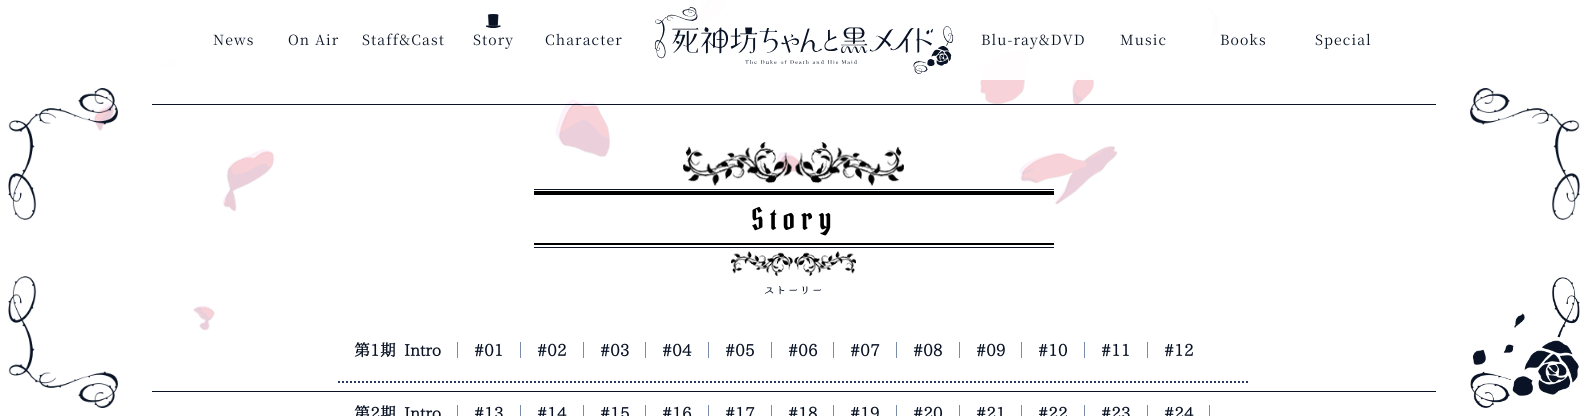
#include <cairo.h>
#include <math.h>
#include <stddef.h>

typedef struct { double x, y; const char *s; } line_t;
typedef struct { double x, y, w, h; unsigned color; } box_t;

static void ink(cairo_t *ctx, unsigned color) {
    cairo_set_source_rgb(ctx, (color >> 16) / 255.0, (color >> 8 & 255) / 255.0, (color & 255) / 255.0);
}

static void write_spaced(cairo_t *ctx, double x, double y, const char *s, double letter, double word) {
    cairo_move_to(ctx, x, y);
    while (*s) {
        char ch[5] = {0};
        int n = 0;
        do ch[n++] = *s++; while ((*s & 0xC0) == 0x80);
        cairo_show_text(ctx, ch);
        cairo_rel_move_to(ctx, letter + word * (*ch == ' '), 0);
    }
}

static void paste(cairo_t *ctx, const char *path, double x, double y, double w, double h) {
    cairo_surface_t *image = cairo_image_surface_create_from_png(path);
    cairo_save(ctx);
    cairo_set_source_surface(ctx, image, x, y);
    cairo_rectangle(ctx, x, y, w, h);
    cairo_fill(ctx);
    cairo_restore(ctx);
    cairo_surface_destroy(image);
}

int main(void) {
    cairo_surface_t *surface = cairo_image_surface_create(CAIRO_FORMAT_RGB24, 1588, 416);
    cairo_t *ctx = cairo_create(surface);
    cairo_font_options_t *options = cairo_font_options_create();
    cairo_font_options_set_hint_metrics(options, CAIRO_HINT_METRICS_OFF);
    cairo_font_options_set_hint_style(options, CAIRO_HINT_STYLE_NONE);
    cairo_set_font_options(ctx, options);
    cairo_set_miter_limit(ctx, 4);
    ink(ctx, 0xFFFFFF);
    cairo_paint(ctx);
    paste(ctx, "media/1.png", 93, 0, 1127, 331);
    paste(ctx, "media/5.png", 683, 142, 221, 44);
    {
        static const box_t items[] = {
            {534, 189, 520, 1, 0x091325},
            {534, 191, 520, 4, 0x000000},
            {534, 243, 520, 2, 0x000000},
        };
        for (size_t i = 0; i < sizeof items / sizeof *items; i++) {
            ink(ctx, items[i].color);
            cairo_rectangle(ctx, items[i].x, items[i].y, items[i].w, items[i].h);
            cairo_fill(ctx);
        }
    }
    cairo_select_font_face(ctx, "Pirata One", CAIRO_FONT_SLANT_NORMAL, CAIRO_FONT_WEIGHT_NORMAL);
    cairo_set_font_size(ctx, 30);
    write_spaced(ctx, 751, 230, "Story", 6, 0);
    paste(ctx, "media/6.png", 731, 251, 125, 25);
    ink(ctx, 0x091325);
    cairo_rectangle(ctx, 534, 247, 520, 1);
    cairo_fill(ctx);
    cairo_select_font_face(ctx, "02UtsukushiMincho", CAIRO_FONT_SLANT_NORMAL, CAIRO_FONT_WEIGHT_BOLD);
    cairo_set_font_size(ctx, 10);
    write_spaced(ctx, 764, 294, "ストーリー", 2, 0);
    cairo_new_path(ctx);
    cairo_move_to(ctx, 338, 382);
    cairo_line_to(ctx, 1250, 382);
    ink(ctx, 0x2A3B5A);
    cairo_set_dash(ctx, (double[]){2, 2}, 2, 0);
    cairo_stroke(ctx);
    cairo_set_font_size(ctx, 16);
    ink(ctx, 0x091325);
    cairo_move_to(ctx, 354, 356);
    cairo_show_text(ctx, "第1期 Intro");
    ink(ctx, 0x7B8CA9);
    cairo_rectangle(ctx, 457, 342, 1, 16);
    cairo_fill(ctx);
    ink(ctx, 0x091325);
    cairo_move_to(ctx, 474, 356);
    cairo_show_text(ctx, "#01");
    ink(ctx, 0x7B8CA9);
    cairo_rectangle(ctx, 520, 342, 1, 16);
    cairo_fill(ctx);
    ink(ctx, 0x091325);
    cairo_move_to(ctx, 537, 356);
    cairo_show_text(ctx, "#02");
    ink(ctx, 0x7B8CA9);
    cairo_rectangle(ctx, 583, 342, 1, 16);
    cairo_fill(ctx);
    ink(ctx, 0x091325);
    cairo_move_to(ctx, 600, 356);
    cairo_show_text(ctx, "#03");
    ink(ctx, 0x7B8CA9);
    cairo_rectangle(ctx, 645, 342, 1, 16);
    cairo_fill(ctx);
    ink(ctx, 0x091325);
    cairo_move_to(ctx, 662, 356);
    cairo_show_text(ctx, "#04");
    ink(ctx, 0x7B8CA9);
    cairo_rectangle(ctx, 708, 342, 1, 16);
    cairo_fill(ctx);
    ink(ctx, 0x091325);
    cairo_move_to(ctx, 725, 356);
    cairo_show_text(ctx, "#05");
    ink(ctx, 0x7B8CA9);
    cairo_rectangle(ctx, 771, 342, 1, 16);
    cairo_fill(ctx);
    ink(ctx, 0x091325);
    cairo_move_to(ctx, 788, 356);
    cairo_show_text(ctx, "#06");
    ink(ctx, 0x7B8CA9);
    cairo_rectangle(ctx, 833, 342, 1, 16);
    cairo_fill(ctx);
    ink(ctx, 0x091325);
    cairo_move_to(ctx, 850, 356);
    cairo_show_text(ctx, "#07");
    ink(ctx, 0x7B8CA9);
    cairo_rectangle(ctx, 896, 342, 1, 16);
    cairo_fill(ctx);
    ink(ctx, 0x091325);
    cairo_move_to(ctx, 913, 356);
    cairo_show_text(ctx, "#08");
    ink(ctx, 0x7B8CA9);
    cairo_rectangle(ctx, 959, 342, 1, 16);
    cairo_fill(ctx);
    ink(ctx, 0x091325);
    cairo_move_to(ctx, 976, 356);
    cairo_show_text(ctx, "#09");
    ink(ctx, 0x7B8CA9);
    cairo_rectangle(ctx, 1021, 342, 1, 16);
    cairo_fill(ctx);
    ink(ctx, 0x091325);
    cairo_move_to(ctx, 1038, 356);
    cairo_show_text(ctx, "#10");
    ink(ctx, 0x7B8CA9);
    cairo_rectangle(ctx, 1084, 342, 1, 16);
    cairo_fill(ctx);
    ink(ctx, 0x091325);
    cairo_move_to(ctx, 1101, 356);
    cairo_show_text(ctx, "#11");
    ink(ctx, 0x7B8CA9);
    cairo_rectangle(ctx, 1147, 342, 1, 16);
    cairo_fill(ctx);
    ink(ctx, 0x091325);
    cairo_move_to(ctx, 1164, 356);
    cairo_show_text(ctx, "#12");
    cairo_move_to(ctx, 354, 419);
    cairo_show_text(ctx, "第2期 Intro");
    ink(ctx, 0x7B8CA9);
    cairo_rectangle(ctx, 457, 405, 1, 11);
    cairo_fill(ctx);
    ink(ctx, 0x091325);
    cairo_move_to(ctx, 474, 419);
    cairo_show_text(ctx, "#13");
    ink(ctx, 0x7B8CA9);
    cairo_rectangle(ctx, 520, 405, 1, 11);
    cairo_fill(ctx);
    ink(ctx, 0x091325);
    cairo_move_to(ctx, 537, 419);
    cairo_show_text(ctx, "#14");
    ink(ctx, 0x7B8CA9);
    cairo_rectangle(ctx, 583, 405, 1, 11);
    cairo_fill(ctx);
    ink(ctx, 0x091325);
    cairo_move_to(ctx, 600, 419);
    cairo_show_text(ctx, "#15");
    ink(ctx, 0x7B8CA9);
    cairo_rectangle(ctx, 645, 405, 1, 11);
    cairo_fill(ctx);
    ink(ctx, 0x091325);
    cairo_move_to(ctx, 662, 419);
    cairo_show_text(ctx, "#16");
    ink(ctx, 0x7B8CA9);
    cairo_rectangle(ctx, 708, 405, 1, 11);
    cairo_fill(ctx);
    ink(ctx, 0x091325);
    cairo_move_to(ctx, 725, 419);
    cairo_show_text(ctx, "#17");
    ink(ctx, 0x7B8CA9);
    cairo_rectangle(ctx, 771, 405, 1, 11);
    cairo_fill(ctx);
    ink(ctx, 0x091325);
    cairo_move_to(ctx, 788, 419);
    cairo_show_text(ctx, "#18");
    ink(ctx, 0x7B8CA9);
    cairo_rectangle(ctx, 833, 405, 1, 11);
    cairo_fill(ctx);
    ink(ctx, 0x091325);
    cairo_move_to(ctx, 850, 419);
    cairo_show_text(ctx, "#19");
    ink(ctx, 0x7B8CA9);
    cairo_rectangle(ctx, 896, 405, 1, 11);
    cairo_fill(ctx);
    ink(ctx, 0x091325);
    cairo_move_to(ctx, 913, 419);
    cairo_show_text(ctx, "#20");
    ink(ctx, 0x7B8CA9);
    cairo_rectangle(ctx, 959, 405, 1, 11);
    cairo_fill(ctx);
    ink(ctx, 0x091325);
    cairo_move_to(ctx, 976, 419);
    cairo_show_text(ctx, "#21");
    ink(ctx, 0x7B8CA9);
    cairo_rectangle(ctx, 1021, 405, 1, 11);
    cairo_fill(ctx);
    ink(ctx, 0x091325);
    cairo_move_to(ctx, 1038, 419);
    cairo_show_text(ctx, "#22");
    ink(ctx, 0x7B8CA9);
    cairo_rectangle(ctx, 1084, 405, 1, 11);
    cairo_fill(ctx);
    ink(ctx, 0x091325);
    cairo_move_to(ctx, 1101, 419);
    cairo_show_text(ctx, "#23");
    ink(ctx, 0x7B8CA9);
    cairo_rectangle(ctx, 1147, 405, 1, 11);
    cairo_fill(ctx);
    ink(ctx, 0x091325);
    cairo_move_to(ctx, 1164, 419);
    cairo_show_text(ctx, "#24");
    ink(ctx, 0x7B8CA9);
    cairo_rectangle(ctx, 1209, 405, 1, 11);
    cairo_fill(ctx);
    paste(ctx, "media/2.png", 8, 88, 1572, 320);
    ink(ctx, 0x091325);
    cairo_rectangle(ctx, 152, 104, 1284, 1);
    cairo_fill(ctx);
    cairo_rectangle(ctx, 152, 391, 1284, 1);
    cairo_fill(ctx);
    cairo_set_source_rgba(ctx, 1, 1, 1, 0.95);
    cairo_rectangle(ctx, 162, 0, 1058, 80);
    cairo_fill(ctx);
    cairo_select_font_face(ctx, "Noto Serif JP", CAIRO_FONT_SLANT_NORMAL, CAIRO_FONT_WEIGHT_NORMAL);
    cairo_set_font_size(ctx, 14);
    ink(ctx, 0x091325);
    {
        static const line_t items[] = {
            {213, 45, "News"},
            {288, 45, "On Air"},
            {362, 45, "Staff&Cast"},
        };
        for (size_t i = 0; i < sizeof items / sizeof *items; i++) {
            write_spaced(ctx, items[i].x, items[i].y, items[i].s, 1.1, 0);
        }
    }
    paste(ctx, "media/3.png", 486, 14, 15, 14);
    write_spaced(ctx, 473, 45, "Story", 1.1, 0);
    write_spaced(ctx, 545, 45, "Character", 1.1, 0);
    paste(ctx, "media/4.png", 654, 7, 300, 67);
    {
        static const line_t items[] = {
            {981, 45, "Blu-ray&DVD"},
            {1120, 45, "Music"},
            {1220, 45, "Books"},
            {1315, 45, "Special"},
        };
        for (size_t i = 0; i < sizeof items / sizeof *items; i++) {
            write_spaced(ctx, items[i].x, items[i].y, items[i].s, 1.1, 0);
        }
    }
    cairo_surface_write_to_png(surface, "image.png");
    cairo_font_options_destroy(options);
    cairo_destroy(ctx);
    cairo_surface_destroy(surface);
    return 0;
}
